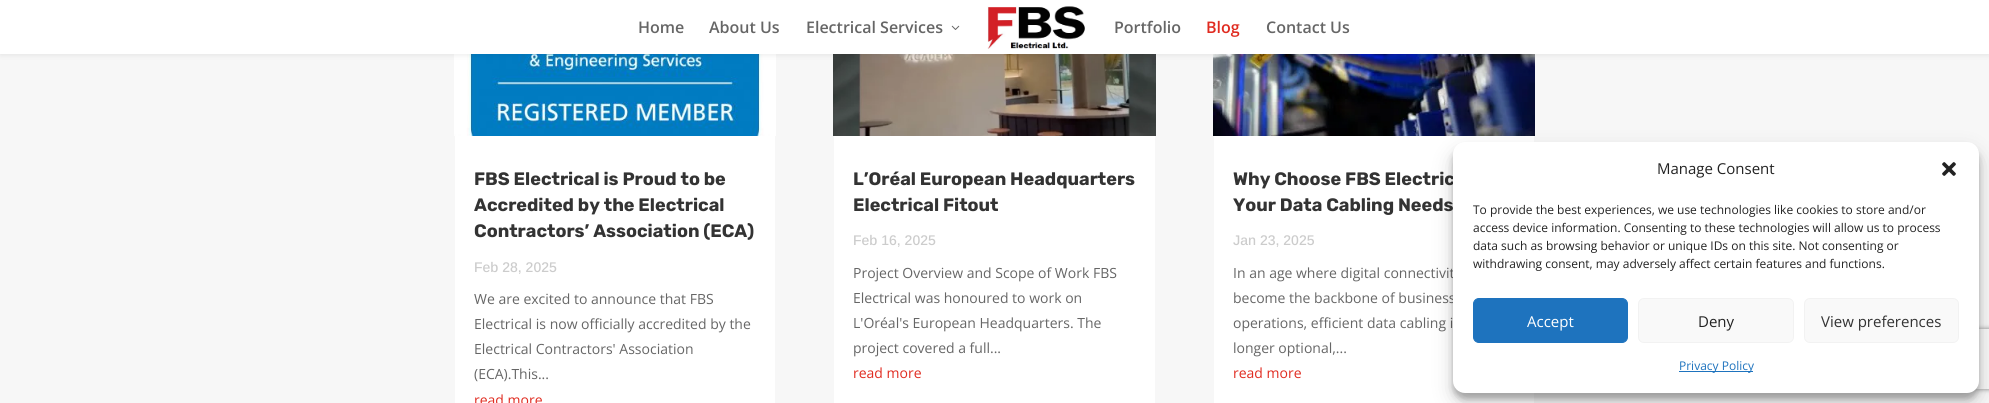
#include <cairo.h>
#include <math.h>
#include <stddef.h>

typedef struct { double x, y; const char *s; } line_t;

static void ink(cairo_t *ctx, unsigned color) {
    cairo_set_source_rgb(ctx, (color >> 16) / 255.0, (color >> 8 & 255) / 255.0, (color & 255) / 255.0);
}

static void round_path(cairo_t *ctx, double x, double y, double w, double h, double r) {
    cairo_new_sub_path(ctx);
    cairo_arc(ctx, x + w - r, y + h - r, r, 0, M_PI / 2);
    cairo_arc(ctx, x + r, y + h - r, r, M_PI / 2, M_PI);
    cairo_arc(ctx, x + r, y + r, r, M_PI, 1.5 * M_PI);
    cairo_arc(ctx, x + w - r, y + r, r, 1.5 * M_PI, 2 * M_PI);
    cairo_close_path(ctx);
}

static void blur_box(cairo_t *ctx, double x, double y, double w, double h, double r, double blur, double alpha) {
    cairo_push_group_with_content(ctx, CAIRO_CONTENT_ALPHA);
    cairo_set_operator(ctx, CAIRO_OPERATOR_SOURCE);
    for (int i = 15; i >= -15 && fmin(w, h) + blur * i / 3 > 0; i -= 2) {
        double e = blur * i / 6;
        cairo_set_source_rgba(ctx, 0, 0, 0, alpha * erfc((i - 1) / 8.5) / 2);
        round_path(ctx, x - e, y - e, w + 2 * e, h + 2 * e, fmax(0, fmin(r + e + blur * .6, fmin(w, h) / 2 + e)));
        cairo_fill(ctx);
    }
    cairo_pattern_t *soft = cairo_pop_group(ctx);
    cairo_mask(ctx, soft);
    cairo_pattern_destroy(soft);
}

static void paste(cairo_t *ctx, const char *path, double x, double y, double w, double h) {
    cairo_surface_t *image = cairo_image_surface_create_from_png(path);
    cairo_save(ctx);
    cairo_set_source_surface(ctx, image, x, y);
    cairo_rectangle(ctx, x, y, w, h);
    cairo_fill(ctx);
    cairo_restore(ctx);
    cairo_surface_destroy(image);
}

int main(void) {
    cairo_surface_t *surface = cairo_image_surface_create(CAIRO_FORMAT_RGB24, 1989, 403);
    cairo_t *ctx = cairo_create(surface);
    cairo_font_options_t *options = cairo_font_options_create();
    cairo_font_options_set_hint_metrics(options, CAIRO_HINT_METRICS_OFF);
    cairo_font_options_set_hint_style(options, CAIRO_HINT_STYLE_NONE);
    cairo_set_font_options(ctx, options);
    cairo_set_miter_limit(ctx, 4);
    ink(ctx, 0xF7F7F7);
    cairo_paint(ctx);
    paste(ctx, "media/3.png", 454, 54, 322, 82);
    paste(ctx, "media/4.png", 833, 54, 323, 82);
    paste(ctx, "media/5.png", 1213, 54, 322, 82);
    ink(ctx, 0x000000);
    blur_box(ctx, 0, 0, 1989, 54, 0, 3.5, 0.1);
    ink(ctx, 0xFFFFFF);
    cairo_rectangle(ctx, 0, 0, 1989, 54);
    cairo_fill(ctx);
    cairo_select_font_face(ctx, "Open Sans SemiBold", CAIRO_FONT_SLANT_NORMAL, CAIRO_FONT_WEIGHT_NORMAL);
    cairo_set_font_size(ctx, 16);
    ink(ctx, 0x666666);
    {
        static const line_t items[] = {
            {638, 33, "Home"},
            {709, 33, "About Us"},
            {806, 33, "Electrical Services"},
        };
        for (size_t i = 0; i < sizeof items / sizeof *items; i++) {
            cairo_move_to(ctx, items[i].x, items[i].y);
            cairo_show_text(ctx, items[i].s);
        }
    }
    paste(ctx, "media/1.png", 951, 25, 9, 5);
    paste(ctx, "media/2.png", 987, 6, 98, 43);
    cairo_move_to(ctx, 1114, 33);
    cairo_show_text(ctx, "Portfolio");
    ink(ctx, 0xE02B20);
    cairo_move_to(ctx, 1206, 33);
    cairo_show_text(ctx, "Blog");
    ink(ctx, 0x666666);
    cairo_move_to(ctx, 1266, 33);
    cairo_show_text(ctx, "Contact Us");
    ink(ctx, 0xFFFFFF);
    cairo_rectangle(ctx, 455, 136, 320, 267);
    cairo_fill(ctx);
    cairo_select_font_face(ctx, "Rubik", CAIRO_FONT_SLANT_NORMAL, CAIRO_FONT_WEIGHT_BOLD);
    cairo_set_font_size(ctx, 18);
    ink(ctx, 0x333333);
    {
        static const line_t items[] = {
            {474, 185, "FBS Electrical is Proud to be"},
            {474, 211, "Accredited by the Electrical"},
            {474, 237, "Contractors’ Association (ECA)"},
        };
        for (size_t i = 0; i < sizeof items / sizeof *items; i++) {
            cairo_move_to(ctx, items[i].x, items[i].y);
            cairo_show_text(ctx, items[i].s);
        }
    }
    cairo_select_font_face(ctx, "Arimo Medium", CAIRO_FONT_SLANT_NORMAL, CAIRO_FONT_WEIGHT_NORMAL);
    cairo_set_font_size(ctx, 14);
    ink(ctx, 0xCCCCCC);
    cairo_move_to(ctx, 474, 272);
    cairo_show_text(ctx, "Feb 28, 2025");
    cairo_select_font_face(ctx, "Open Sans", CAIRO_FONT_SLANT_NORMAL, CAIRO_FONT_WEIGHT_NORMAL);
    ink(ctx, 0x666666);
    {
        static const line_t items[] = {
            {474, 304, "We are excited to announce that FBS"},
            {474, 329, "Electrical is now officially accredited by the"},
            {474, 354, "Electrical Contractors' Association"},
            {474, 379, "(ECA).This..."},
        };
        for (size_t i = 0; i < sizeof items / sizeof *items; i++) {
            cairo_move_to(ctx, items[i].x, items[i].y);
            cairo_show_text(ctx, items[i].s);
        }
    }
    ink(ctx, 0xE02B20);
    cairo_move_to(ctx, 474, 405);
    cairo_show_text(ctx, "read more");
    ink(ctx, 0xFFFFFF);
    cairo_rectangle(ctx, 834, 136, 321, 267);
    cairo_fill(ctx);
    cairo_select_font_face(ctx, "Rubik", CAIRO_FONT_SLANT_NORMAL, CAIRO_FONT_WEIGHT_BOLD);
    cairo_set_font_size(ctx, 18);
    ink(ctx, 0x333333);
    cairo_move_to(ctx, 853, 185);
    cairo_show_text(ctx, "L’Oréal European Headquarters");
    cairo_move_to(ctx, 853, 211);
    cairo_show_text(ctx, "Electrical Fitout");
    cairo_select_font_face(ctx, "Arimo Medium", CAIRO_FONT_SLANT_NORMAL, CAIRO_FONT_WEIGHT_NORMAL);
    cairo_set_font_size(ctx, 14);
    ink(ctx, 0xCCCCCC);
    cairo_move_to(ctx, 853, 245);
    cairo_show_text(ctx, "Feb 16, 2025");
    cairo_select_font_face(ctx, "Open Sans", CAIRO_FONT_SLANT_NORMAL, CAIRO_FONT_WEIGHT_NORMAL);
    ink(ctx, 0x666666);
    {
        static const line_t items[] = {
            {853, 278, "Project Overview and Scope of Work FBS"},
            {853, 303, "Electrical was honoured to work on"},
            {853, 328, "L'Oréal's European Headquarters. The"},
            {853, 353, "project covered a full..."},
        };
        for (size_t i = 0; i < sizeof items / sizeof *items; i++) {
            cairo_move_to(ctx, items[i].x, items[i].y);
            cairo_show_text(ctx, items[i].s);
        }
    }
    ink(ctx, 0xE02B20);
    cairo_move_to(ctx, 853, 378);
    cairo_show_text(ctx, "read more");
    ink(ctx, 0xFFFFFF);
    cairo_rectangle(ctx, 1214, 136, 320, 267);
    cairo_fill(ctx);
    cairo_select_font_face(ctx, "Rubik", CAIRO_FONT_SLANT_NORMAL, CAIRO_FONT_WEIGHT_BOLD);
    cairo_set_font_size(ctx, 18);
    ink(ctx, 0x333333);
    cairo_move_to(ctx, 1233, 185);
    cairo_show_text(ctx, "Why Choose FBS Electric");
    cairo_move_to(ctx, 1233, 211);
    cairo_show_text(ctx, "Your Data Cabling Needs");
    cairo_select_font_face(ctx, "Arimo Medium", CAIRO_FONT_SLANT_NORMAL, CAIRO_FONT_WEIGHT_NORMAL);
    cairo_set_font_size(ctx, 14);
    ink(ctx, 0xCCCCCC);
    cairo_move_to(ctx, 1233, 245);
    cairo_show_text(ctx, "Jan 23, 2025");
    cairo_select_font_face(ctx, "Open Sans", CAIRO_FONT_SLANT_NORMAL, CAIRO_FONT_WEIGHT_NORMAL);
    ink(ctx, 0x666666);
    {
        static const line_t items[] = {
            {1233, 278, "In an age where digital connectivit"},
            {1233, 303, "become the backbone of business"},
            {1233, 328, "operations, efficient data cabling i"},
            {1233, 353, "longer optional,..."},
        };
        for (size_t i = 0; i < sizeof items / sizeof *items; i++) {
            cairo_move_to(ctx, items[i].x, items[i].y);
            cairo_show_text(ctx, items[i].s);
        }
    }
    ink(ctx, 0xE02B20);
    cairo_move_to(ctx, 1233, 378);
    cairo_show_text(ctx, "read more");
    ink(ctx, 0x000000);
    blur_box(ctx, 1453, 148, 526, 251, 12, 3, 0.23);
    blur_box(ctx, 1453, 152, 526, 251, 12, 10, 0.19);
    cairo_save(ctx);
    cairo_set_fill_rule(ctx, CAIRO_FILL_RULE_EVEN_ODD);
    cairo_new_path(ctx);
    cairo_move_to(ctx, 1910, 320);
    cairo_line_to(ctx, 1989, 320);
    cairo_line_to(ctx, 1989, 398);
    cairo_line_to(ctx, 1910, 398);
    cairo_close_path(ctx);
    cairo_move_to(ctx, 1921, 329);
    cairo_line_to(ctx, 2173, 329);
    cairo_curve_to(ctx, 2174, 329, 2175, 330, 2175, 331);
    cairo_line_to(ctx, 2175, 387);
    cairo_curve_to(ctx, 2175, 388, 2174, 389, 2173, 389);
    cairo_line_to(ctx, 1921, 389);
    cairo_curve_to(ctx, 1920, 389, 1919, 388, 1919, 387);
    cairo_line_to(ctx, 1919, 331);
    cairo_curve_to(ctx, 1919, 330, 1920, 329, 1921, 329);
    cairo_close_path(ctx);
    cairo_clip(ctx);
    ink(ctx, 0x808080);
    blur_box(ctx, 1919, 329, 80, 60, 2, 2.5, 1);
    cairo_restore(ctx);
    ink(ctx, 0xFFFFFF);
    round_path(ctx, 1453, 142, 526, 251, 12);
    cairo_fill(ctx);
    cairo_set_font_size(ctx, 15);
    ink(ctx, 0x222222);
    cairo_move_to(ctx, 1657, 174);
    cairo_show_text(ctx, "Manage Consent");
    paste(ctx, "media/6.png", 1942, 162, 14, 14);
    cairo_set_font_size(ctx, 12);
    {
        static const line_t items[] = {
            {1473, 214, "To provide the best experiences, we use technologies like cookies to store and/or"},
            {1473, 232, "access device information. Consenting to these technologies will allow us to process"},
            {1473, 250, "data such as browsing behavior or unique IDs on this site. Not consenting or"},
            {1473, 268, "withdrawing consent, may adversely affect certain features and functions."},
        };
        for (size_t i = 0; i < sizeof items / sizeof *items; i++) {
            cairo_move_to(ctx, items[i].x, items[i].y);
            cairo_show_text(ctx, items[i].s);
        }
    }
    ink(ctx, 0x1E73BE);
    round_path(ctx, 1473.5, 298.5, 154, 44, 5.5);
    cairo_fill_preserve(ctx);
    cairo_set_line_width(ctx, 1);
    cairo_stroke(ctx);
    cairo_set_font_size(ctx, 15);
    ink(ctx, 0xFFFFFF);
    cairo_move_to(ctx, 1527, 327);
    cairo_show_text(ctx, "Accept");
    ink(ctx, 0xF9F9F9);
    round_path(ctx, 1638.5, 298.5, 155, 44, 5.5);
    cairo_fill_preserve(ctx);
    ink(ctx, 0xF2F2F2);
    cairo_stroke(ctx);
    ink(ctx, 0x222222);
    cairo_move_to(ctx, 1698, 327);
    cairo_show_text(ctx, "Deny");
    ink(ctx, 0xF9F9F9);
    round_path(ctx, 1804.5, 298.5, 154, 44, 5.5);
    cairo_fill_preserve(ctx);
    ink(ctx, 0xF2F2F2);
    cairo_stroke(ctx);
    ink(ctx, 0x333333);
    cairo_move_to(ctx, 1821, 327);
    cairo_show_text(ctx, "View preferences");
    ink(ctx, 0x1E73BE);
    cairo_rectangle(ctx, 1679, 371, 74, 1);
    cairo_fill(ctx);
    cairo_set_font_size(ctx, 12);
    cairo_move_to(ctx, 1679, 370);
    cairo_show_text(ctx, "Privacy Policy");
    cairo_surface_write_to_png(surface, "image.png");
    cairo_font_options_destroy(options);
    cairo_destroy(ctx);
    cairo_surface_destroy(surface);
    return 0;
}
